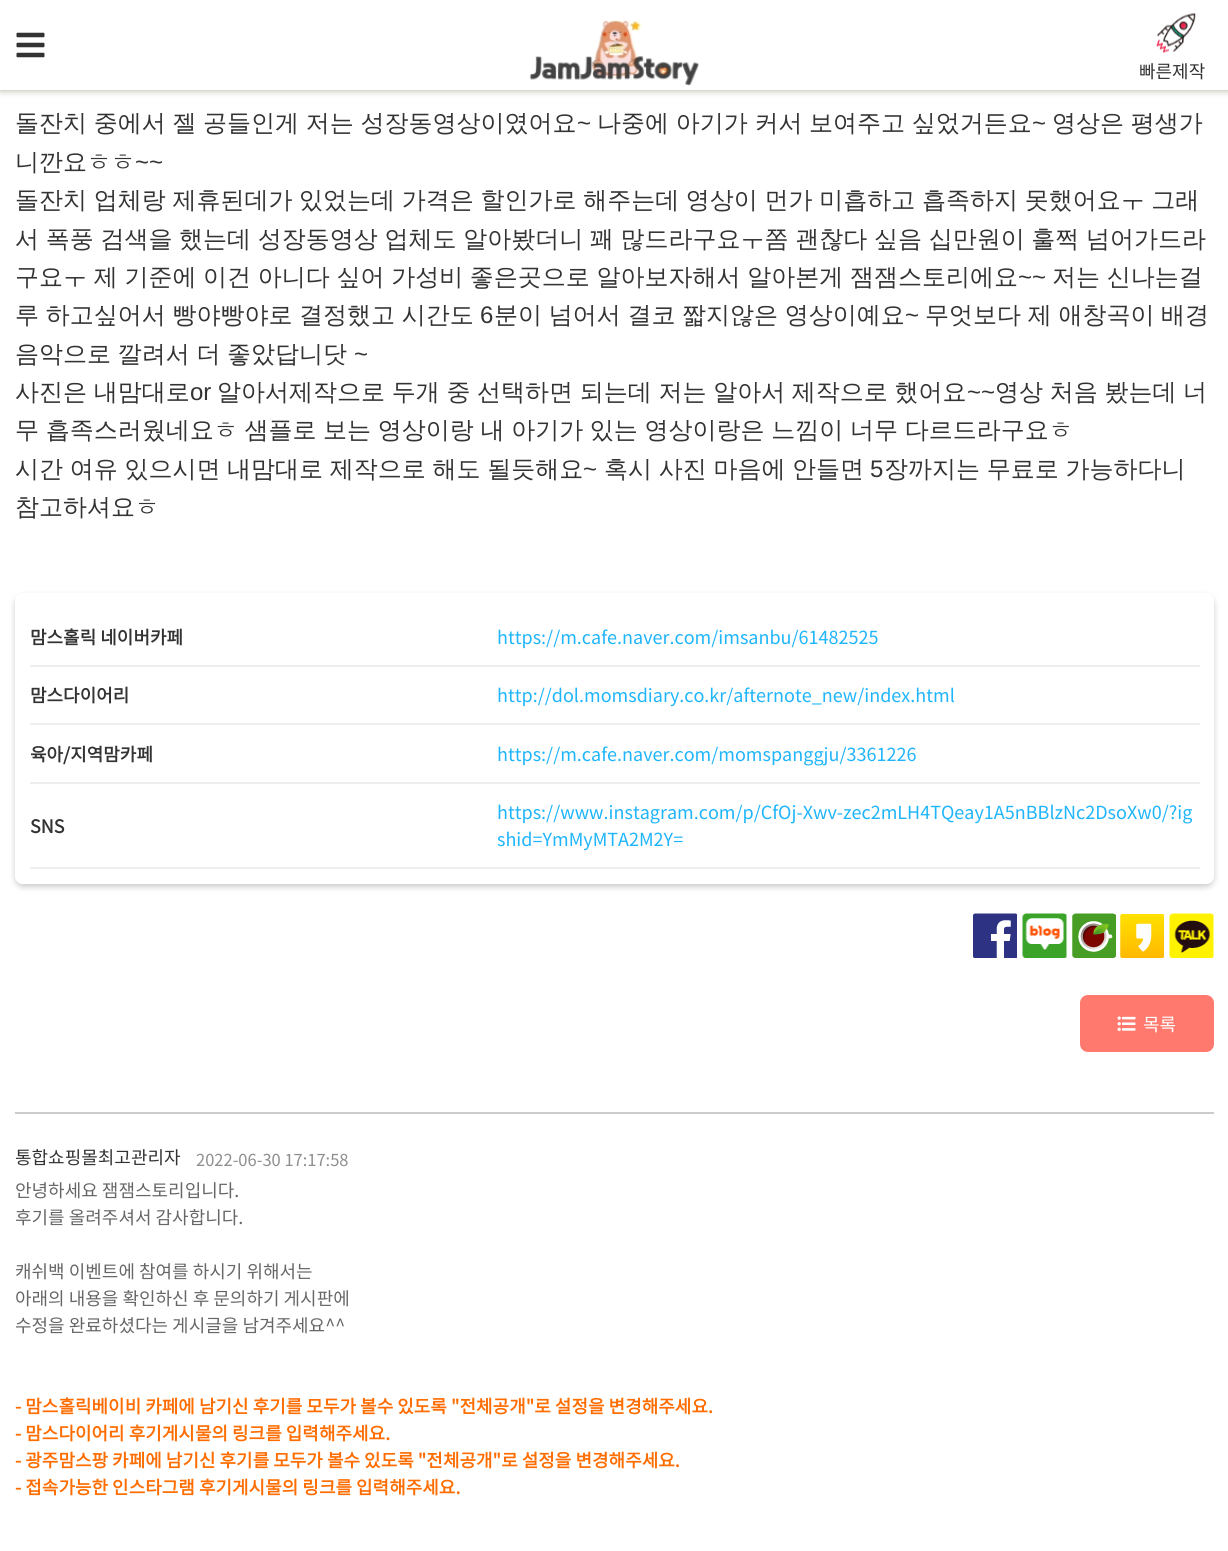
#include <cairo.h>
#include <math.h>
#include <stddef.h>

typedef struct { double x, y; const char *s; } line_t;

static void ink(cairo_t *ctx, unsigned color) {
    cairo_set_source_rgb(ctx, (color >> 16) / 255.0, (color >> 8 & 255) / 255.0, (color & 255) / 255.0);
}

static void write_spaced(cairo_t *ctx, double x, double y, const char *s, double letter, double word) {
    cairo_move_to(ctx, x, y);
    while (*s) {
        char ch[5] = {0};
        int n = 0;
        do ch[n++] = *s++; while ((*s & 0xC0) == 0x80);
        cairo_show_text(ctx, ch);
        cairo_rel_move_to(ctx, letter + word * (*ch == ' '), 0);
    }
}

static void round_path(cairo_t *ctx, double x, double y, double w, double h, double r) {
    cairo_new_sub_path(ctx);
    cairo_arc(ctx, x + w - r, y + h - r, r, 0, M_PI / 2);
    cairo_arc(ctx, x + r, y + h - r, r, M_PI / 2, M_PI);
    cairo_arc(ctx, x + r, y + r, r, M_PI, 1.5 * M_PI);
    cairo_arc(ctx, x + w - r, y + r, r, 1.5 * M_PI, 2 * M_PI);
    cairo_close_path(ctx);
}

static void blur_box(cairo_t *ctx, double x, double y, double w, double h, double r, double blur, double alpha) {
    cairo_push_group_with_content(ctx, CAIRO_CONTENT_ALPHA);
    cairo_set_operator(ctx, CAIRO_OPERATOR_SOURCE);
    for (int i = 15; i >= -15 && fmin(w, h) + blur * i / 3 > 0; i -= 2) {
        double e = blur * i / 6;
        cairo_set_source_rgba(ctx, 0, 0, 0, alpha * erfc((i - 1) / 8.5) / 2);
        round_path(ctx, x - e, y - e, w + 2 * e, h + 2 * e, fmax(0, fmin(r + e + blur * .6, fmin(w, h) / 2 + e)));
        cairo_fill(ctx);
    }
    cairo_pattern_t *soft = cairo_pop_group(ctx);
    cairo_mask(ctx, soft);
    cairo_pattern_destroy(soft);
}

static void paste(cairo_t *ctx, const char *path, double x, double y, double w, double h) {
    cairo_surface_t *image = cairo_image_surface_create_from_png(path);
    cairo_save(ctx);
    cairo_set_source_surface(ctx, image, x, y);
    cairo_rectangle(ctx, x, y, w, h);
    cairo_fill(ctx);
    cairo_restore(ctx);
    cairo_surface_destroy(image);
}

int main(void) {
    cairo_surface_t *surface = cairo_image_surface_create(CAIRO_FORMAT_RGB24, 1228, 1551);
    cairo_t *ctx = cairo_create(surface);
    cairo_font_options_t *options = cairo_font_options_create();
    cairo_font_options_set_hint_metrics(options, CAIRO_HINT_METRICS_OFF);
    cairo_font_options_set_hint_style(options, CAIRO_HINT_STYLE_NONE);
    cairo_set_font_options(ctx, options);
    cairo_set_miter_limit(ctx, 4);
    ink(ctx, 0xFFFFFF);
    cairo_paint(ctx);
    ink(ctx, 0x373705);
    blur_box(ctx, 0, 0, 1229, 90, 0, 4, 0.4);
    ink(ctx, 0xFFFFFF);
    cairo_rectangle(ctx, 0, 0, 1228, 90);
    cairo_fill(ctx);
    paste(ctx, "media/1.png", 16, 32, 29, 26);
    paste(ctx, "media/2.png", 529, 20, 170, 66);
    paste(ctx, "media/3.png", 1156, 13, 40, 40);
    cairo_select_font_face(ctx, "Noto Sans KR", CAIRO_FONT_SLANT_NORMAL, CAIRO_FONT_WEIGHT_NORMAL);
    cairo_set_font_size(ctx, 18);
    ink(ctx, 0x333333);
    cairo_move_to(ctx, 1139, 78);
    cairo_show_text(ctx, "빠른제작");
    cairo_select_font_face(ctx, "WenQuanYi Zen Hei Medium", CAIRO_FONT_SLANT_NORMAL, CAIRO_FONT_WEIGHT_NORMAL);
    cairo_set_font_size(ctx, 24);
    write_spaced(ctx, 15, 131, "돌잔치 중에서 젤 공들인게 저는 성장동영상이였어요", 0, -0.5);
    cairo_select_font_face(ctx, "Liberation Sans", CAIRO_FONT_SLANT_NORMAL, CAIRO_FONT_WEIGHT_NORMAL);
    cairo_move_to(ctx, 577, 131);
    cairo_show_text(ctx, "~");
    cairo_select_font_face(ctx, "WenQuanYi Zen Hei Medium", CAIRO_FONT_SLANT_NORMAL, CAIRO_FONT_WEIGHT_NORMAL);
    write_spaced(ctx, 597, 131, "나중에 아기가 커서 보여주고 싶었거든요", 0, -0.5);
    cairo_select_font_face(ctx, "Liberation Sans", CAIRO_FONT_SLANT_NORMAL, CAIRO_FONT_WEIGHT_NORMAL);
    cairo_move_to(ctx, 1032, 131);
    cairo_show_text(ctx, "~");
    cairo_select_font_face(ctx, "WenQuanYi Zen Hei Medium", CAIRO_FONT_SLANT_NORMAL, CAIRO_FONT_WEIGHT_NORMAL);
    write_spaced(ctx, 1052, 131, "영상은 평생가", 0, -0.5);
    cairo_move_to(ctx, 15, 170);
    cairo_show_text(ctx, "니깐요ㅎㅎ");
    cairo_select_font_face(ctx, "Liberation Sans", CAIRO_FONT_SLANT_NORMAL, CAIRO_FONT_WEIGHT_NORMAL);
    cairo_move_to(ctx, 135, 170);
    cairo_show_text(ctx, "~~");
    cairo_select_font_face(ctx, "WenQuanYi Zen Hei Medium", CAIRO_FONT_SLANT_NORMAL, CAIRO_FONT_WEIGHT_NORMAL);
    {
        static const line_t items[] = {
            {15, 208, "돌잔치 업체랑 제휴된데가 있었는데 가격은 할인가로 해주는데 영상이 먼가 미흡하고 흡족하지 못했어요ㅜ 그래"},
            {15, 247, "서 폭풍 검색을 했는데 성장동영상 업체도 알아봤더니 꽤 많드라구요ㅜ쫌 괜찮다 싶음 십만원이 훌쩍 넘어가드라"},
            {15, 285, "구요ㅜ 제 기준에 이건 아니다 싶어 가성비 좋은곳으로 알아보자해서 알아본게 잼잼스토리에요"},
        };
        for (size_t i = 0; i < sizeof items / sizeof *items; i++) {
            write_spaced(ctx, items[i].x, items[i].y, items[i].s, 0, -0.5);
        }
    }
    cairo_select_font_face(ctx, "Liberation Sans", CAIRO_FONT_SLANT_NORMAL, CAIRO_FONT_WEIGHT_NORMAL);
    cairo_move_to(ctx, 1018, 285);
    cairo_show_text(ctx, "~~");
    cairo_select_font_face(ctx, "WenQuanYi Zen Hei Medium", CAIRO_FONT_SLANT_NORMAL, CAIRO_FONT_WEIGHT_NORMAL);
    write_spaced(ctx, 1052, 285, "저는 신나는걸", 0, -0.5);
    write_spaced(ctx, 15, 323, "루 하고싶어서 빵야빵야로 결정했고 시간도", 0, -0.5);
    cairo_select_font_face(ctx, "Liberation Sans", CAIRO_FONT_SLANT_NORMAL, CAIRO_FONT_WEIGHT_NORMAL);
    cairo_move_to(ctx, 480, 323);
    cairo_show_text(ctx, "6");
    cairo_select_font_face(ctx, "WenQuanYi Zen Hei Medium", CAIRO_FONT_SLANT_NORMAL, CAIRO_FONT_WEIGHT_NORMAL);
    write_spaced(ctx, 494, 323, "분이 넘어서 결코 짧지않은 영상이예요", 0, -0.5);
    cairo_select_font_face(ctx, "Liberation Sans", CAIRO_FONT_SLANT_NORMAL, CAIRO_FONT_WEIGHT_NORMAL);
    cairo_move_to(ctx, 905, 323);
    cairo_show_text(ctx, "~");
    cairo_select_font_face(ctx, "WenQuanYi Zen Hei Medium", CAIRO_FONT_SLANT_NORMAL, CAIRO_FONT_WEIGHT_NORMAL);
    write_spaced(ctx, 925, 323, "무엇보다 제 애창곡이 배경", 0, -0.5);
    write_spaced(ctx, 15, 362, "음악으로 깔려서 더 좋았답니닷", 0, -0.5);
    cairo_select_font_face(ctx, "Liberation Sans", CAIRO_FONT_SLANT_NORMAL, CAIRO_FONT_WEIGHT_NORMAL);
    cairo_move_to(ctx, 354, 362);
    cairo_show_text(ctx, "~");
    cairo_select_font_face(ctx, "WenQuanYi Zen Hei Medium", CAIRO_FONT_SLANT_NORMAL, CAIRO_FONT_WEIGHT_NORMAL);
    write_spaced(ctx, 15, 400, "사진은 내맘대로", 0, -0.5);
    cairo_select_font_face(ctx, "Liberation Sans", CAIRO_FONT_SLANT_NORMAL, CAIRO_FONT_WEIGHT_NORMAL);
    cairo_move_to(ctx, 190, 400);
    cairo_show_text(ctx, "or");
    cairo_select_font_face(ctx, "WenQuanYi Zen Hei Medium", CAIRO_FONT_SLANT_NORMAL, CAIRO_FONT_WEIGHT_NORMAL);
    write_spaced(ctx, 217, 400, "알아서제작으로 두개 중 선택하면 되는데 저는 알아서 제작으로 했어요", 0, -0.5);
    cairo_select_font_face(ctx, "Liberation Sans", CAIRO_FONT_SLANT_NORMAL, CAIRO_FONT_WEIGHT_NORMAL);
    cairo_move_to(ctx, 967, 400);
    cairo_show_text(ctx, "~~");
    cairo_select_font_face(ctx, "WenQuanYi Zen Hei Medium", CAIRO_FONT_SLANT_NORMAL, CAIRO_FONT_WEIGHT_NORMAL);
    {
        static const line_t items[] = {
            {995, 400, "영상 처음 봤는데 너"},
            {15, 438, "무 흡족스러웠네요ㅎ 샘플로 보는 영상이랑 내 아기가 있는 영상이랑은 느낌이 너무 다르드라구요ㅎ"},
            {15, 477, "시간 여유 있으시면 내맘대로 제작으로 해도 될듯해요"},
        };
        for (size_t i = 0; i < sizeof items / sizeof *items; i++) {
            write_spaced(ctx, items[i].x, items[i].y, items[i].s, 0, -0.5);
        }
    }
    cairo_select_font_face(ctx, "Liberation Sans", CAIRO_FONT_SLANT_NORMAL, CAIRO_FONT_WEIGHT_NORMAL);
    cairo_move_to(ctx, 583, 477);
    cairo_show_text(ctx, "~");
    cairo_select_font_face(ctx, "WenQuanYi Zen Hei Medium", CAIRO_FONT_SLANT_NORMAL, CAIRO_FONT_WEIGHT_NORMAL);
    write_spaced(ctx, 604, 477, "혹시 사진 마음에 안들면", 0, -0.5);
    cairo_select_font_face(ctx, "Liberation Sans", CAIRO_FONT_SLANT_NORMAL, CAIRO_FONT_WEIGHT_NORMAL);
    cairo_move_to(ctx, 870, 477);
    cairo_show_text(ctx, "5");
    cairo_select_font_face(ctx, "WenQuanYi Zen Hei Medium", CAIRO_FONT_SLANT_NORMAL, CAIRO_FONT_WEIGHT_NORMAL);
    write_spaced(ctx, 884, 477, "장까지는 무료로 가능하다니", 0, -0.5);
    cairo_move_to(ctx, 15, 515);
    cairo_show_text(ctx, "참고하셔요ㅎ");
    cairo_save(ctx);
    cairo_set_fill_rule(ctx, CAIRO_FILL_RULE_EVEN_ODD);
    cairo_new_path(ctx);
    cairo_move_to(ctx, 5, 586);
    cairo_line_to(ctx, 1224, 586);
    cairo_line_to(ctx, 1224, 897);
    cairo_line_to(ctx, 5, 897);
    cairo_close_path(ctx);
    cairo_move_to(ctx, 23, 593);
    cairo_line_to(ctx, 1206, 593);
    cairo_curve_to(ctx, 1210.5, 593, 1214, 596.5, 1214, 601);
    cairo_line_to(ctx, 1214, 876);
    cairo_curve_to(ctx, 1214, 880.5, 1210.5, 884, 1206, 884);
    cairo_line_to(ctx, 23, 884);
    cairo_curve_to(ctx, 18.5, 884, 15, 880.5, 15, 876);
    cairo_line_to(ctx, 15, 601);
    cairo_curve_to(ctx, 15, 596.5, 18.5, 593, 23, 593);
    cairo_close_path(ctx);
    cairo_clip(ctx);
    ink(ctx, 0x000000);
    blur_box(ctx, 15, 596, 1199, 291, 8, 3, 0.2);
    cairo_restore(ctx);
    ink(ctx, 0xEEEEEE);
    cairo_rectangle(ctx, 30, 665, 1170, 2);
    cairo_fill(ctx);
    cairo_select_font_face(ctx, "Noto Sans KR", CAIRO_FONT_SLANT_NORMAL, CAIRO_FONT_WEIGHT_BOLD);
    cairo_set_font_size(ctx, 18);
    ink(ctx, 0x333333);
    cairo_move_to(ctx, 30, 644);
    cairo_show_text(ctx, "맘스홀릭 네이버카페");
    cairo_select_font_face(ctx, "Noto Sans KR", CAIRO_FONT_SLANT_NORMAL, CAIRO_FONT_WEIGHT_NORMAL);
    ink(ctx, 0x1FB5FB);
    cairo_move_to(ctx, 497, 644);
    cairo_show_text(ctx, "https://m.cafe.naver.com/imsanbu/61482525");
    ink(ctx, 0xEEEEEE);
    cairo_rectangle(ctx, 30, 723, 1170, 2);
    cairo_fill(ctx);
    cairo_select_font_face(ctx, "Noto Sans KR", CAIRO_FONT_SLANT_NORMAL, CAIRO_FONT_WEIGHT_BOLD);
    ink(ctx, 0x333333);
    cairo_move_to(ctx, 30, 702);
    cairo_show_text(ctx, "맘스다이어리");
    cairo_select_font_face(ctx, "Noto Sans KR", CAIRO_FONT_SLANT_NORMAL, CAIRO_FONT_WEIGHT_NORMAL);
    ink(ctx, 0x1FB5FB);
    cairo_move_to(ctx, 497, 702);
    cairo_show_text(ctx, "http://dol.momsdiary.co.kr/afternote_new/index.html");
    ink(ctx, 0xEEEEEE);
    cairo_rectangle(ctx, 30, 782, 1170, 2);
    cairo_fill(ctx);
    cairo_select_font_face(ctx, "Noto Sans KR", CAIRO_FONT_SLANT_NORMAL, CAIRO_FONT_WEIGHT_BOLD);
    ink(ctx, 0x333333);
    cairo_move_to(ctx, 30, 761);
    cairo_show_text(ctx, "육아/지역맘카페");
    cairo_select_font_face(ctx, "Noto Sans KR", CAIRO_FONT_SLANT_NORMAL, CAIRO_FONT_WEIGHT_NORMAL);
    ink(ctx, 0x1FB5FB);
    cairo_move_to(ctx, 497, 761);
    cairo_show_text(ctx, "https://m.cafe.naver.com/momspanggju/3361226");
    ink(ctx, 0xEEEEEE);
    cairo_rectangle(ctx, 30, 867, 1170, 2);
    cairo_fill(ctx);
    cairo_select_font_face(ctx, "Noto Sans KR", CAIRO_FONT_SLANT_NORMAL, CAIRO_FONT_WEIGHT_BOLD);
    ink(ctx, 0x333333);
    cairo_move_to(ctx, 30, 833);
    cairo_show_text(ctx, "SNS");
    cairo_select_font_face(ctx, "Noto Sans KR", CAIRO_FONT_SLANT_NORMAL, CAIRO_FONT_WEIGHT_NORMAL);
    ink(ctx, 0x1FB5FB);
    cairo_move_to(ctx, 497, 819);
    cairo_show_text(ctx, "https://www.instagram.com/p/CfOj-Xwv-zec2mLH4TQeay1A5nBBlzNc2DsoXw0/?ig");
    cairo_move_to(ctx, 497, 846);
    cairo_show_text(ctx, "shid=YmMyMTA2M2Y=");
    paste(ctx, "media/4.png", 973, 913, 44, 45);
    paste(ctx, "media/5.png", 1022, 913, 45, 45);
    paste(ctx, "media/6.png", 1072, 913, 44, 45);
    paste(ctx, "media/7.png", 1120, 914, 44, 44);
    paste(ctx, "media/8.png", 1169, 913, 45, 45);
    ink(ctx, 0xFF796E);
    round_path(ctx, 1080, 995, 134, 57, 8);
    cairo_fill(ctx);
    paste(ctx, "media/9.png", 1117, 1016, 19, 15);
    ink(ctx, 0xFFFFFF);
    cairo_move_to(ctx, 1143, 1031);
    cairo_show_text(ctx, "목록");
    ink(ctx, 0xCCCCCC);
    cairo_rectangle(ctx, 15, 1112, 1199, 2);
    cairo_fill(ctx);
    ink(ctx, 0x333333);
    cairo_move_to(ctx, 15, 1164);
    cairo_show_text(ctx, "통합쇼핑몰최고관리자");
    cairo_set_font_size(ctx, 16.5);
    ink(ctx, 0x8E8E8E);
    cairo_move_to(ctx, 196, 1166);
    cairo_show_text(ctx, "2022-06-30 17:17:58");
    cairo_set_font_size(ctx, 18);
    ink(ctx, 0x666666);
    {
        static const line_t items[] = {
            {15, 1197, "안녕하세요 잼잼스토리입니다."},
            {15, 1224, "후기를 올려주셔서 감사합니다."},
            {15, 1278, "캐쉬백 이벤트에 참여를 하시기 위해서는"},
            {15, 1305, "아래의 내용을 확인하신 후 문의하기 게시판에"},
            {15, 1332, "수정을 완료하셨다는 게시글을 남겨주세요^^"},
        };
        for (size_t i = 0; i < sizeof items / sizeof *items; i++) {
            cairo_move_to(ctx, items[i].x, items[i].y);
            cairo_show_text(ctx, items[i].s);
        }
    }
    cairo_select_font_face(ctx, "Noto Sans KR", CAIRO_FONT_SLANT_NORMAL, CAIRO_FONT_WEIGHT_BOLD);
    ink(ctx, 0xFF6C00);
    {
        static const line_t items[] = {
            {15, 1413, "- 맘스홀릭베이비 카페에 남기신 후기를 모두가 볼수 있도록 \"전체공개\"로 설정을 변경해주세요."},
            {15, 1440, "- 맘스다이어리 후기게시물의 링크를 입력해주세요."},
            {15, 1467, "- 광주맘스팡 카페에 남기신 후기를 모두가 볼수 있도록 \"전체공개\"로 설정을 변경해주세요."},
            {15, 1494, "- 접속가능한 인스타그램 후기게시물의 링크를 입력해주세요."},
        };
        for (size_t i = 0; i < sizeof items / sizeof *items; i++) {
            cairo_move_to(ctx, items[i].x, items[i].y);
            cairo_show_text(ctx, items[i].s);
        }
    }
    cairo_surface_write_to_png(surface, "image.png");
    cairo_font_options_destroy(options);
    cairo_destroy(ctx);
    cairo_surface_destroy(surface);
    return 0;
}
